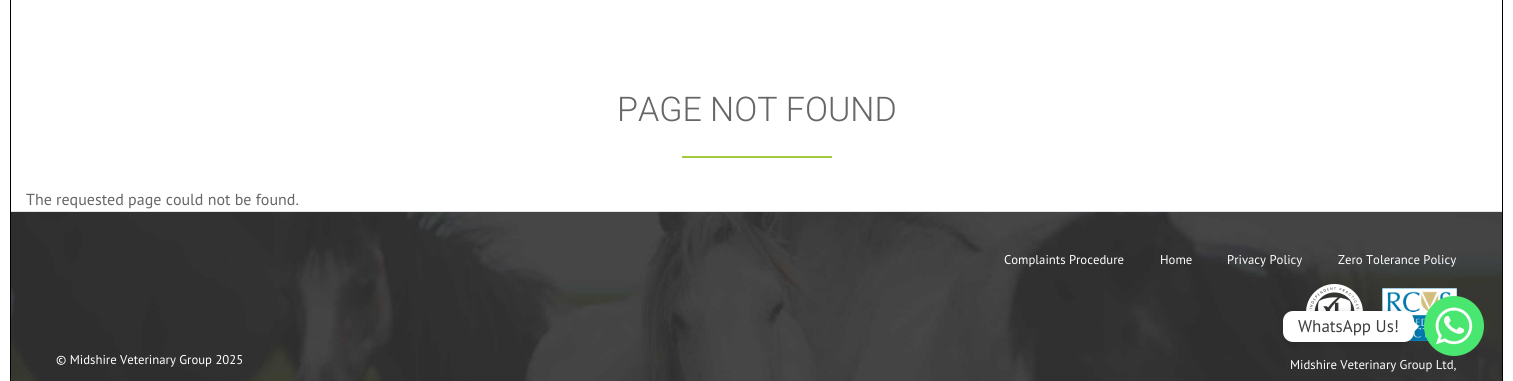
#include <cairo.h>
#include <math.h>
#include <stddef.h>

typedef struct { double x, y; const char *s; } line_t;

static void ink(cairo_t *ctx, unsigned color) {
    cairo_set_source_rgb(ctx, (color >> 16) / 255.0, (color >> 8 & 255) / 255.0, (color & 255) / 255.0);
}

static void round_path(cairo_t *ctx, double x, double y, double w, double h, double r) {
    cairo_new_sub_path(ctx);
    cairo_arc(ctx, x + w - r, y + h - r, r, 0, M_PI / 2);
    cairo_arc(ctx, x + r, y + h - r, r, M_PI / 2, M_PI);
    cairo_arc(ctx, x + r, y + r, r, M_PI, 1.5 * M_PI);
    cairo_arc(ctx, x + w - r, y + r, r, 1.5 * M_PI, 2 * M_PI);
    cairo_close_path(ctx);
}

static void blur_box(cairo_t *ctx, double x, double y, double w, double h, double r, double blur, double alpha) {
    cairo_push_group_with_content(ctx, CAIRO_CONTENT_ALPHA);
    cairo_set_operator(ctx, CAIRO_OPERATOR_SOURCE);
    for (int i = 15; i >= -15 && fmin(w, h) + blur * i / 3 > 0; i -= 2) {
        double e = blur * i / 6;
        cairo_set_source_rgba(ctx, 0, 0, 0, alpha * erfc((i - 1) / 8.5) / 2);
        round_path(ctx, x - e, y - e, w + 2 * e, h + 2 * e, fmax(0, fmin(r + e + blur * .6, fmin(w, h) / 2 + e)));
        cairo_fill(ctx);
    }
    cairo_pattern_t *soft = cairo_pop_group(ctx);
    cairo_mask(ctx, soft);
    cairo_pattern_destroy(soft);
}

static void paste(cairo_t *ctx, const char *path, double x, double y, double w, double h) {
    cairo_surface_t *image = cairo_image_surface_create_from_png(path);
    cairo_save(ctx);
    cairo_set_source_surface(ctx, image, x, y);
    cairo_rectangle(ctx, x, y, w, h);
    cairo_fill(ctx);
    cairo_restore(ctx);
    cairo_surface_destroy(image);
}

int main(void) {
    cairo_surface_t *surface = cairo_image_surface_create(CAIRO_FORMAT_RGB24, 1513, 381);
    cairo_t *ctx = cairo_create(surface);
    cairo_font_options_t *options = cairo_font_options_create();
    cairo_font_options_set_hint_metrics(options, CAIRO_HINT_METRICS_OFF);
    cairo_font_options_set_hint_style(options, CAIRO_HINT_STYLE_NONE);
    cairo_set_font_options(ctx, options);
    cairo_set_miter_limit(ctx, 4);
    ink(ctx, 0xFFFFFF);
    cairo_paint(ctx);
    cairo_rectangle(ctx, 10.5, -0.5, 1492, 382);
    ink(ctx, 0x000000);
    cairo_set_line_width(ctx, 1);
    cairo_stroke(ctx);
    cairo_select_font_face(ctx, "Roboto Light", CAIRO_FONT_SLANT_NORMAL, CAIRO_FONT_WEIGHT_NORMAL);
    cairo_set_font_size(ctx, 34);
    ink(ctx, 0x666666);
    cairo_move_to(ctx, 617, 121);
    cairo_show_text(ctx, "PAGE NOT FOUND");
    ink(ctx, 0xA2C940);
    cairo_rectangle(ctx, 682, 156, 150, 2);
    cairo_fill(ctx);
    cairo_select_font_face(ctx, "PT Sans", CAIRO_FONT_SLANT_NORMAL, CAIRO_FONT_WEIGHT_NORMAL);
    cairo_set_font_size(ctx, 16);
    ink(ctx, 0x666666);
    cairo_move_to(ctx, 26, 205);
    cairo_show_text(ctx, "The requested page could not be found.");
    paste(ctx, "media/1.png", 11, 212, 1491, 169);
    ink(ctx, 0xE5E5E5);
    cairo_rectangle(ctx, 11, 211, 1491, 1);
    cairo_fill(ctx);
    cairo_set_font_size(ctx, 12.75);
    ink(ctx, 0xFFFFFF);
    {
        static const line_t items[] = {
            {1004, 264, "Complaints Procedure"},
            {1160, 264, "Home"},
            {1227, 264, "Privacy Policy"},
            {1338, 264, "Zero Tolerance Policy"},
            {56, 364, "© Midshire Veterinary Group 2025"},
        };
        for (size_t i = 0; i < sizeof items / sizeof *items; i++) {
            cairo_move_to(ctx, items[i].x, items[i].y);
            cairo_show_text(ctx, items[i].s);
        }
    }
    paste(ctx, "media/2.png", 1306, 284, 57, 27);
    paste(ctx, "media/3.png", 1382, 288, 75, 53);
    cairo_move_to(ctx, 1290, 369);
    cairo_show_text(ctx, "Midshire Veterinary Group Ltd,");
    paste(ctx, "media/4.png", 1424, 296, 60, 60);
    ink(ctx, 0x000000);
    blur_box(ctx, 1283, 312, 131, 31, 10, 4, 0.15);
    ink(ctx, 0xFFFFFF);
    round_path(ctx, 1283, 311, 131, 31, 10);
    cairo_fill(ctx);
    cairo_set_font_size(ctx, 17);
    ink(ctx, 0x3D3D3D);
    cairo_move_to(ctx, 1298, 332);
    cairo_show_text(ctx, "WhatsApp Us!");
    ink(ctx, 0xFFFFFF);
    cairo_new_path(ctx);
    cairo_move_to(ctx, 1414, 331.5);
    cairo_line_to(ctx, 1414, 321.5);
    cairo_line_to(ctx, 1419, 326.5);
    cairo_close_path(ctx);
    cairo_fill(ctx);
    cairo_surface_write_to_png(surface, "image.png");
    cairo_font_options_destroy(options);
    cairo_destroy(ctx);
    cairo_surface_destroy(surface);
    return 0;
}
